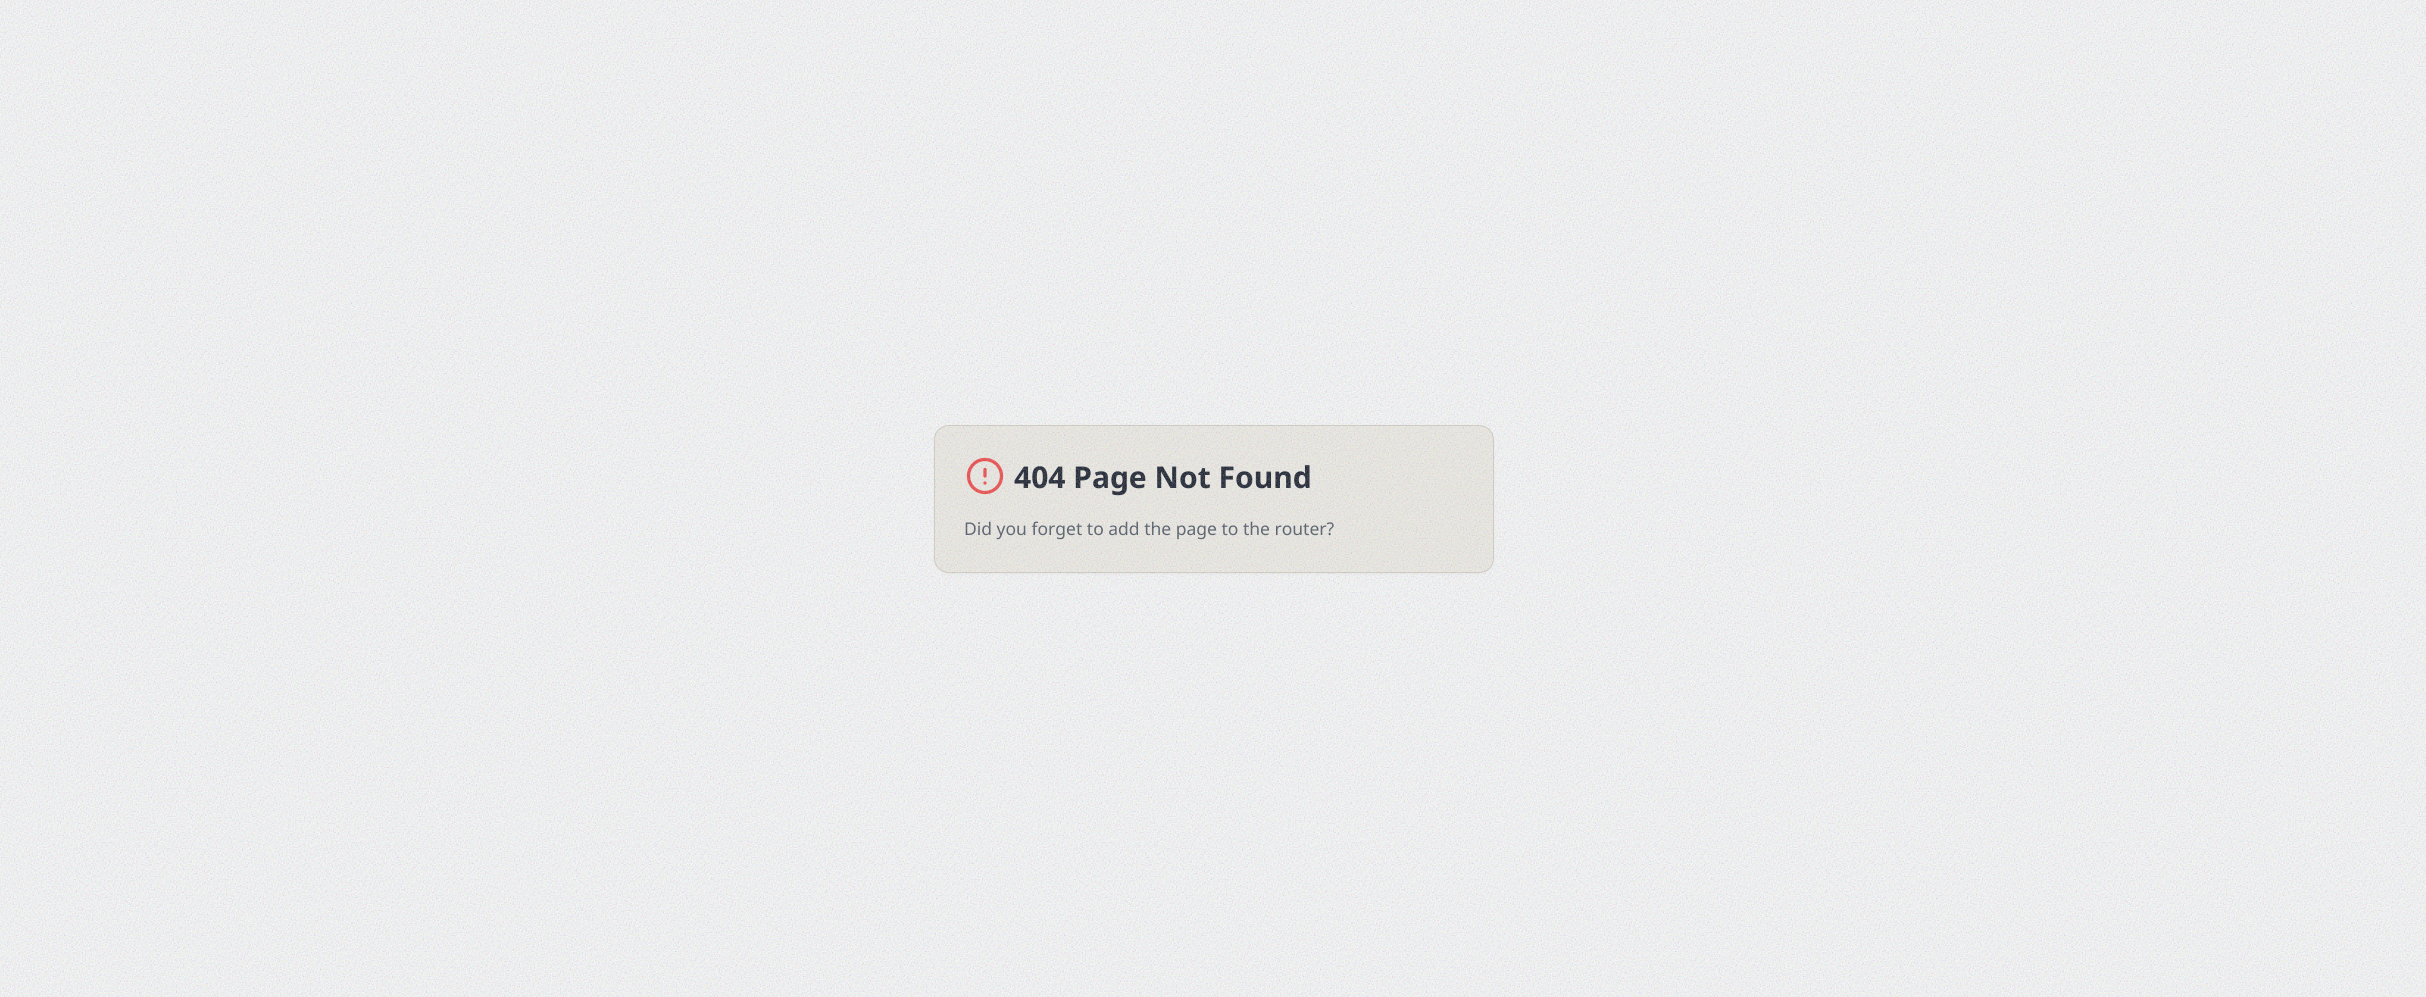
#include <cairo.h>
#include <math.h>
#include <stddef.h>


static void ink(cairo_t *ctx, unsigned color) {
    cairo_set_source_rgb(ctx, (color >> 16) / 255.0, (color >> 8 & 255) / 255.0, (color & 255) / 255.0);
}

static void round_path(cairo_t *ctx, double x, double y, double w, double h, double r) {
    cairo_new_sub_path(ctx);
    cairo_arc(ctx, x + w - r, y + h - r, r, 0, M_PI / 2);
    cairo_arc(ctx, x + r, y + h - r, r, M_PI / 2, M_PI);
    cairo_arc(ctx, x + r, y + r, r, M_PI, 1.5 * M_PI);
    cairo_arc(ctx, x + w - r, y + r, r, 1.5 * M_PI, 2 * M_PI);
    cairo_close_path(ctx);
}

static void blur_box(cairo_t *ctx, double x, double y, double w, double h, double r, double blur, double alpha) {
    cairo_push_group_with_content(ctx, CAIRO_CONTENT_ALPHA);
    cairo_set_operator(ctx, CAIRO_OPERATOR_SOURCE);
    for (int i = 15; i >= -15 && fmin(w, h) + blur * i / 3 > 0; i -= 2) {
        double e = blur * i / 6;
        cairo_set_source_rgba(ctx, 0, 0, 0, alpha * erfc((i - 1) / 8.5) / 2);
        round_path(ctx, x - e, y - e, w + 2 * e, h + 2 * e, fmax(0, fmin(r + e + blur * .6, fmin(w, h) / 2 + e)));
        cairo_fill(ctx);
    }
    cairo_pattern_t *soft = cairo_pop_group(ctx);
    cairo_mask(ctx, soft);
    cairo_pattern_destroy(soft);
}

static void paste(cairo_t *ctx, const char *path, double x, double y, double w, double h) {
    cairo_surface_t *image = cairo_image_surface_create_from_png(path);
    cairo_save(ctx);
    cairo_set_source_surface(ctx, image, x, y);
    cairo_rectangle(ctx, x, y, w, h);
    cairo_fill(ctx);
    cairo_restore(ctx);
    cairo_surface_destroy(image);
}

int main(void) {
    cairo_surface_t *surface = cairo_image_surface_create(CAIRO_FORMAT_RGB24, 2426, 997);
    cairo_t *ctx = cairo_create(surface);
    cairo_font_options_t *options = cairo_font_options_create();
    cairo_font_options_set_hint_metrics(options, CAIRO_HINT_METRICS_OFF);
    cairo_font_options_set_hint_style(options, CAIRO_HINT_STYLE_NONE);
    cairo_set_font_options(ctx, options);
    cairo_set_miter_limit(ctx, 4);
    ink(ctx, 0xF9FAFB);
    cairo_paint(ctx);
    ink(ctx, 0x000000);
    blur_box(ctx, 934, 426, 560, 148, 15, 1, 0.05);
    ink(ctx, 0xEFEDE7);
    round_path(ctx, 934.5, 425.5, 559, 147, 14.5);
    cairo_fill_preserve(ctx);
    ink(ctx, 0xD4D0C4);
    cairo_set_line_width(ctx, 1);
    cairo_stroke(ctx);
    cairo_arc(ctx, 985, 476, 16.5, 0, 2 * M_PI);
    ink(ctx, 0xEF4444);
    cairo_set_line_width(ctx, 3.3);
    cairo_stroke(ctx);
    cairo_new_path(ctx);
    cairo_move_to(ctx, 985, 469.5);
    cairo_line_to(ctx, 985, 476);
    cairo_move_to(ctx, 985, 483);
    cairo_line_to(ctx, 985, 483);
    cairo_set_line_cap(ctx, CAIRO_LINE_CAP_ROUND);
    cairo_set_line_join(ctx, CAIRO_LINE_JOIN_ROUND);
    cairo_stroke(ctx);
    cairo_select_font_face(ctx, "Noto Sans", CAIRO_FONT_SLANT_NORMAL, CAIRO_FONT_WEIGHT_BOLD);
    cairo_set_font_size(ctx, 30);
    ink(ctx, 0x111827);
    cairo_move_to(ctx, 1014, 488);
    cairo_show_text(ctx, "404 Page Not Found");
    cairo_select_font_face(ctx, "Noto Sans", CAIRO_FONT_SLANT_NORMAL, CAIRO_FONT_WEIGHT_NORMAL);
    cairo_set_font_size(ctx, 17.5);
    ink(ctx, 0x4B5563);
    cairo_move_to(ctx, 964, 535);
    cairo_show_text(ctx, "Did you forget to add the page to the router?");
    paste(ctx, "media/1.png", 0, 0, 2426, 997);
    cairo_surface_write_to_png(surface, "image.png");
    cairo_font_options_destroy(options);
    cairo_destroy(ctx);
    cairo_surface_destroy(surface);
    return 0;
}
